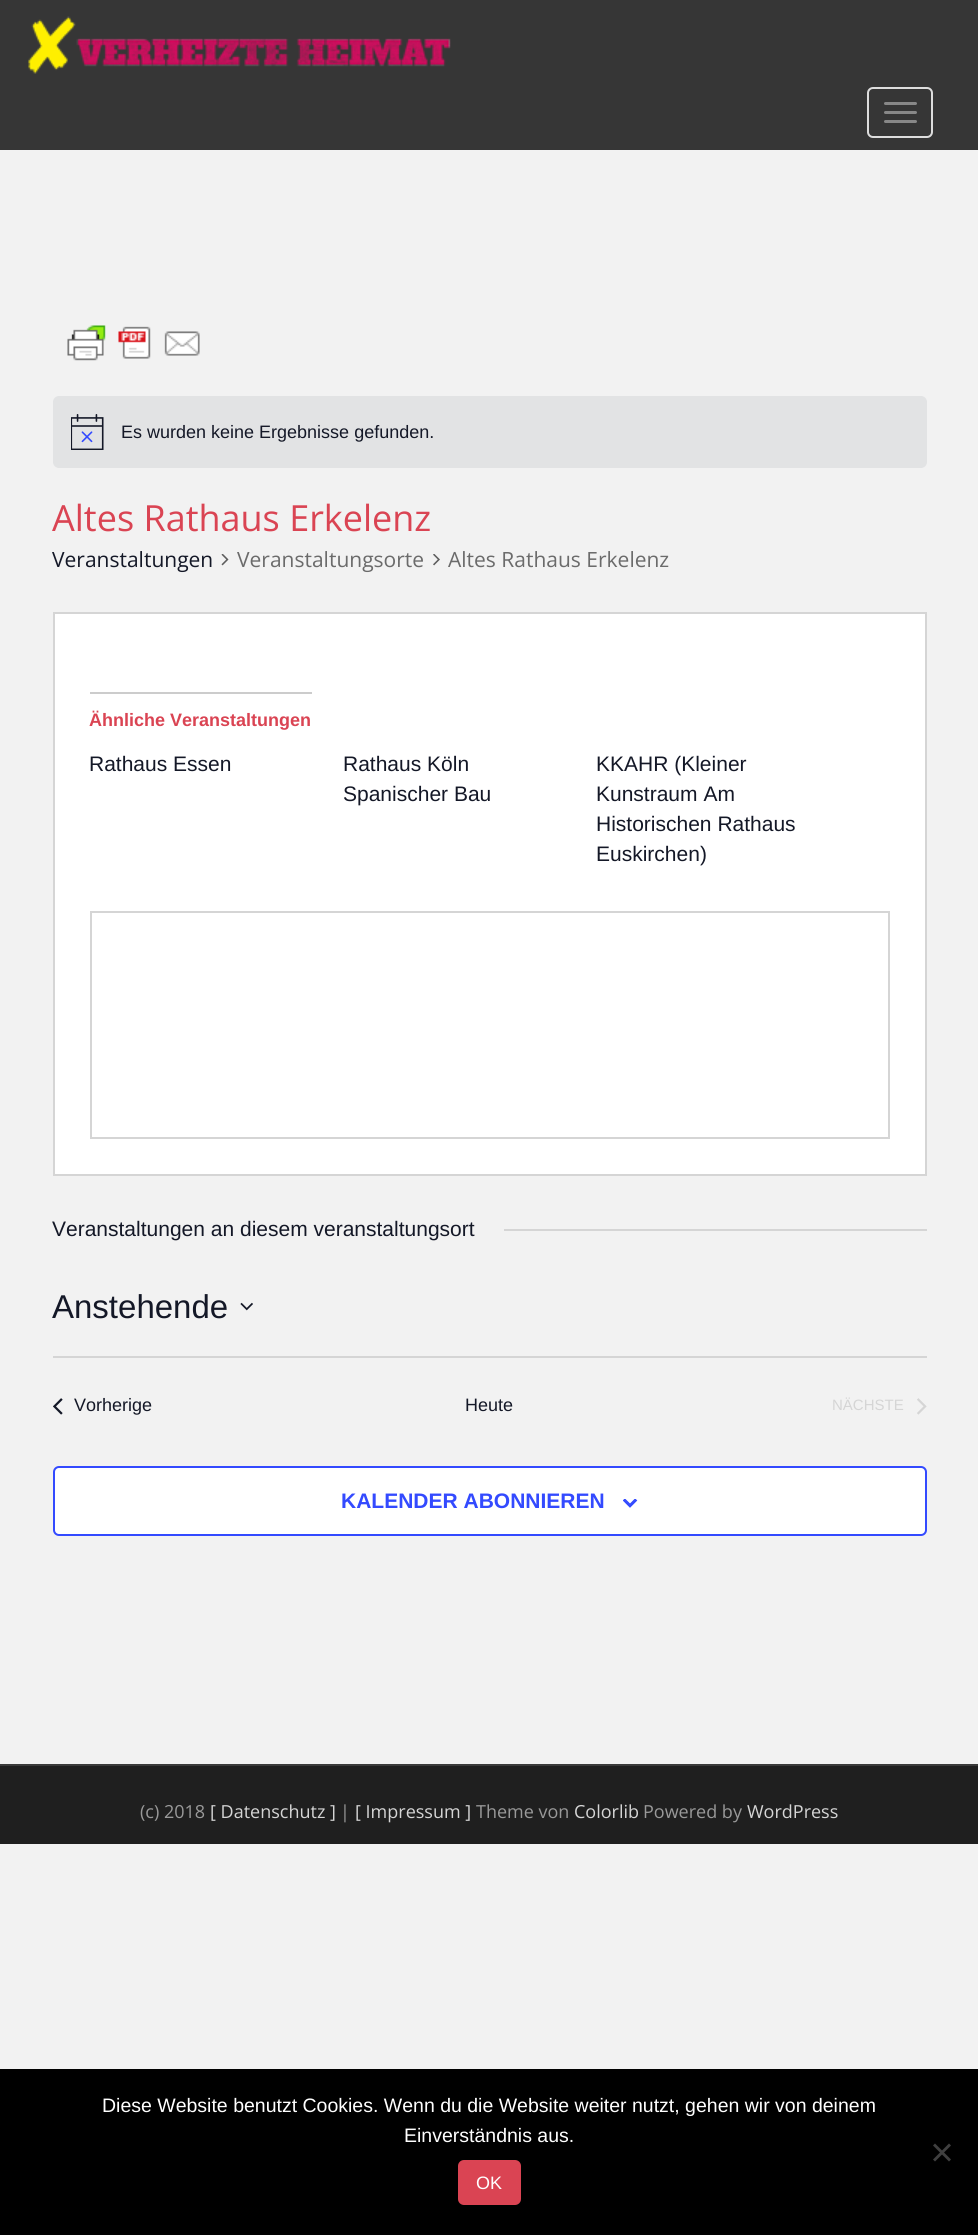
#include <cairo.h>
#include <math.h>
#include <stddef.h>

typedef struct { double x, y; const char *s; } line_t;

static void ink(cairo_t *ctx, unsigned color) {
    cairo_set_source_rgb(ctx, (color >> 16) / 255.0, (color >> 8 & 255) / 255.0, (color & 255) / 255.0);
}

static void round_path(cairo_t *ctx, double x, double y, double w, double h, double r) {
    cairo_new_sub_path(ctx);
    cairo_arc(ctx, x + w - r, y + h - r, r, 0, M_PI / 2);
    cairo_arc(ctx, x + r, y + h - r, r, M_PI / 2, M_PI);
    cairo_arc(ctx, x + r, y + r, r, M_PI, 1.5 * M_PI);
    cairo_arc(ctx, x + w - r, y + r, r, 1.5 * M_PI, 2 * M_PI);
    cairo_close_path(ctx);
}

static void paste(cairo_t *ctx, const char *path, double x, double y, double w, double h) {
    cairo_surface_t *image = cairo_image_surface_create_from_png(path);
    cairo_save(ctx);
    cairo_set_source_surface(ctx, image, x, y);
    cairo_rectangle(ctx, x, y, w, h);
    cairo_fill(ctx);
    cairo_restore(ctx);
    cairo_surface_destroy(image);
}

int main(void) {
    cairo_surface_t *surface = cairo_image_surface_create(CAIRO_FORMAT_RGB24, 978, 2235);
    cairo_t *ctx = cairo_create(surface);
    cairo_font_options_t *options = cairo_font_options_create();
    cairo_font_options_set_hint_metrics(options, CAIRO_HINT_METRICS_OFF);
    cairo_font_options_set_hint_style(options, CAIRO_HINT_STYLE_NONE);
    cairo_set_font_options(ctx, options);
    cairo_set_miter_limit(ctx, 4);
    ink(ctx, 0xF2F2F2);
    cairo_paint(ctx);
    ink(ctx, 0x363636);
    cairo_rectangle(ctx, 0, 0, 978, 150);
    cairo_fill(ctx);
    paste(ctx, "media/1.png", 28, 16, 423, 58);
    round_path(ctx, 868, 88, 64, 49, 5);
    ink(ctx, 0xDDDDDD);
    cairo_stroke(ctx);
    ink(ctx, 0x888888);
    round_path(ctx, 884, 102, 33, 3, 1.5);
    cairo_fill(ctx);
    round_path(ctx, 884, 111, 33, 3, 1.5);
    cairo_fill(ctx);
    round_path(ctx, 884, 120, 33, 3, 1.5);
    cairo_fill(ctx);
    paste(ctx, "media/2.png", 67, 325, 133, 36);
    ink(ctx, 0xE2E3E4);
    round_path(ctx, 53, 396, 874, 72, 6);
    cairo_fill(ctx);
    paste(ctx, "media/3.png", 71, 414, 33, 36);
    cairo_select_font_face(ctx, "Liberation Sans", CAIRO_FONT_SLANT_NORMAL, CAIRO_FONT_WEIGHT_NORMAL);
    cairo_set_font_size(ctx, 18);
    ink(ctx, 0x141827);
    cairo_move_to(ctx, 121, 438);
    cairo_show_text(ctx, "Es wurden keine Ergebnisse gefunden.");
    cairo_select_font_face(ctx, "Open Sans", CAIRO_FONT_SLANT_NORMAL, CAIRO_FONT_WEIGHT_NORMAL);
    cairo_set_font_size(ctx, 36);
    ink(ctx, 0xDA4453);
    cairo_move_to(ctx, 52, 531);
    cairo_show_text(ctx, "Altes Rathaus Erkelenz");
    cairo_set_font_size(ctx, 21);
    ink(ctx, 0x141827);
    cairo_move_to(ctx, 52, 567);
    cairo_show_text(ctx, "Veranstaltungen");
    paste(ctx, "media/4.png", 221, 554, 8, 12);
    ink(ctx, 0x6B6B6B);
    cairo_move_to(ctx, 237, 567);
    cairo_show_text(ctx, "Veranstaltungsorte");
    paste(ctx, "media/5.png", 433, 554, 7, 12);
    cairo_move_to(ctx, 448, 567);
    cairo_show_text(ctx, "Altes Rathaus Erkelenz");
    ink(ctx, 0xFFFFFF);
    cairo_rectangle(ctx, 54, 613, 872, 562);
    cairo_fill_preserve(ctx);
    ink(ctx, 0xD5D5D5);
    cairo_stroke(ctx);
    ink(ctx, 0xCCCCCC);
    cairo_rectangle(ctx, 90, 692, 222, 2);
    cairo_fill(ctx);
    cairo_select_font_face(ctx, "Liberation Sans", CAIRO_FONT_SLANT_NORMAL, CAIRO_FONT_WEIGHT_BOLD);
    cairo_set_font_size(ctx, 18);
    ink(ctx, 0xDA4453);
    cairo_move_to(ctx, 89, 726);
    cairo_show_text(ctx, "Ähnliche Veranstaltungen");
    cairo_select_font_face(ctx, "Liberation Sans", CAIRO_FONT_SLANT_NORMAL, CAIRO_FONT_WEIGHT_NORMAL);
    cairo_set_font_size(ctx, 21);
    ink(ctx, 0x141827);
    {
        static const line_t items[] = {
            {89, 771, "Rathaus Essen"},
            {343, 771, "Rathaus Köln"},
            {343, 801, "Spanischer Bau"},
            {596, 771, "KKAHR (Kleiner"},
            {596, 801, "Kunstraum Am"},
            {596, 831, "Historischen Rathaus"},
            {596, 861, "Euskirchen)"},
        };
        for (size_t i = 0; i < sizeof items / sizeof *items; i++) {
            cairo_move_to(ctx, items[i].x, items[i].y);
            cairo_show_text(ctx, items[i].s);
        }
    }
    cairo_rectangle(ctx, 91, 912, 798, 226);
    ink(ctx, 0xD5D5D5);
    cairo_stroke(ctx);
    ink(ctx, 0x141827);
    cairo_move_to(ctx, 52, 1236);
    cairo_show_text(ctx, "Veranstaltungen an diesem veranstaltungsort");
    ink(ctx, 0xD5D5D5);
    cairo_rectangle(ctx, 504, 1229, 423, 2);
    cairo_fill(ctx);
    cairo_set_font_size(ctx, 33);
    ink(ctx, 0x141827);
    cairo_move_to(ctx, 52, 1318);
    cairo_show_text(ctx, "Anstehende");
    paste(ctx, "media/6.png", 240, 1302, 13, 9);
    ink(ctx, 0xD5D5D5);
    cairo_rectangle(ctx, 53, 1356, 874, 2);
    cairo_fill(ctx);
    paste(ctx, "media/7.png", 53, 1398, 10, 17);
    cairo_set_font_size(ctx, 18);
    ink(ctx, 0x141827);
    cairo_move_to(ctx, 74, 1411);
    cairo_show_text(ctx, "Vorherige");
    cairo_move_to(ctx, 465, 1411);
    cairo_show_text(ctx, "Heute");
    cairo_set_font_size(ctx, 15);
    ink(ctx, 0xD5D5D5);
    cairo_move_to(ctx, 832, 1410);
    cairo_show_text(ctx, "NÄCHSTE");
    paste(ctx, "media/8.png", 917, 1398, 10, 17);
    ink(ctx, 0xFFFFFF);
    round_path(ctx, 54, 1467, 872, 68, 5);
    cairo_fill_preserve(ctx);
    ink(ctx, 0x334AFF);
    cairo_stroke(ctx);
    cairo_select_font_face(ctx, "Liberation Sans", CAIRO_FONT_SLANT_NORMAL, CAIRO_FONT_WEIGHT_BOLD);
    cairo_set_font_size(ctx, 21);
    cairo_move_to(ctx, 341, 1508);
    cairo_show_text(ctx, "KALENDER ABONNIEREN");
    paste(ctx, "media/9.png", 623, 1499, 15, 9);
    ink(ctx, 0x1F1F1F);
    cairo_rectangle(ctx, 0, 1766, 978, 78);
    cairo_fill(ctx);
    ink(ctx, 0x3A3A3A);
    cairo_rectangle(ctx, 0, 1764, 978, 2);
    cairo_fill(ctx);
    cairo_select_font_face(ctx, "Open Sans", CAIRO_FONT_SLANT_NORMAL, CAIRO_FONT_WEIGHT_NORMAL);
    cairo_set_font_size(ctx, 18);
    ink(ctx, 0x999999);
    cairo_move_to(ctx, 140, 1818);
    cairo_show_text(ctx, "(c) 2018");
    ink(ctx, 0xD5D5D5);
    cairo_move_to(ctx, 210, 1818);
    cairo_show_text(ctx, "[ Datenschutz ]");
    ink(ctx, 0x999999);
    cairo_move_to(ctx, 340, 1818);
    cairo_show_text(ctx, "|");
    ink(ctx, 0xD5D5D5);
    cairo_move_to(ctx, 355, 1818);
    cairo_show_text(ctx, "[ Impressum ]");
    ink(ctx, 0x999999);
    cairo_move_to(ctx, 476, 1818);
    cairo_show_text(ctx, "Theme von");
    ink(ctx, 0xD5D5D5);
    cairo_move_to(ctx, 574, 1818);
    cairo_show_text(ctx, "Colorlib");
    ink(ctx, 0x999999);
    cairo_move_to(ctx, 643, 1818);
    cairo_show_text(ctx, "Powered by");
    ink(ctx, 0xD5D5D5);
    cairo_move_to(ctx, 747, 1818);
    cairo_show_text(ctx, "WordPress");
    ink(ctx, 0x000000);
    cairo_rectangle(ctx, 0, 2069, 978, 166);
    cairo_fill(ctx);
    cairo_select_font_face(ctx, "Liberation Sans", CAIRO_FONT_SLANT_NORMAL, CAIRO_FONT_WEIGHT_NORMAL);
    cairo_set_font_size(ctx, 19.5);
    ink(ctx, 0xFFFFFF);
    cairo_move_to(ctx, 102, 2112);
    cairo_show_text(ctx, "Diese Website benutzt Cookies. Wenn du die Website weiter nutzt, gehen wir von deinem");
    cairo_move_to(ctx, 404, 2142);
    cairo_show_text(ctx, "Einverständnis aus.");
    ink(ctx, 0x404040);
    cairo_new_path(ctx);
    cairo_move_to(ctx, 949, 2143.5);
    cairo_line_to(ctx, 951, 2145.5);
    cairo_line_to(ctx, 935, 2161.5);
    cairo_line_to(ctx, 933, 2159.5);
    cairo_close_path(ctx);
    cairo_fill(ctx);
    cairo_new_path(ctx);
    cairo_move_to(ctx, 933, 2145.5);
    cairo_line_to(ctx, 935, 2143.5);
    cairo_line_to(ctx, 951, 2159.5);
    cairo_line_to(ctx, 949, 2161.5);
    cairo_close_path(ctx);
    cairo_fill(ctx);
    ink(ctx, 0xDA4453);
    round_path(ctx, 458, 2160, 63, 45, 6);
    cairo_fill(ctx);
    cairo_set_font_size(ctx, 18);
    ink(ctx, 0xFFFFFF);
    cairo_move_to(ctx, 476, 2189);
    cairo_show_text(ctx, "OK");
    cairo_surface_write_to_png(surface, "image.png");
    cairo_font_options_destroy(options);
    cairo_destroy(ctx);
    cairo_surface_destroy(surface);
    return 0;
}
